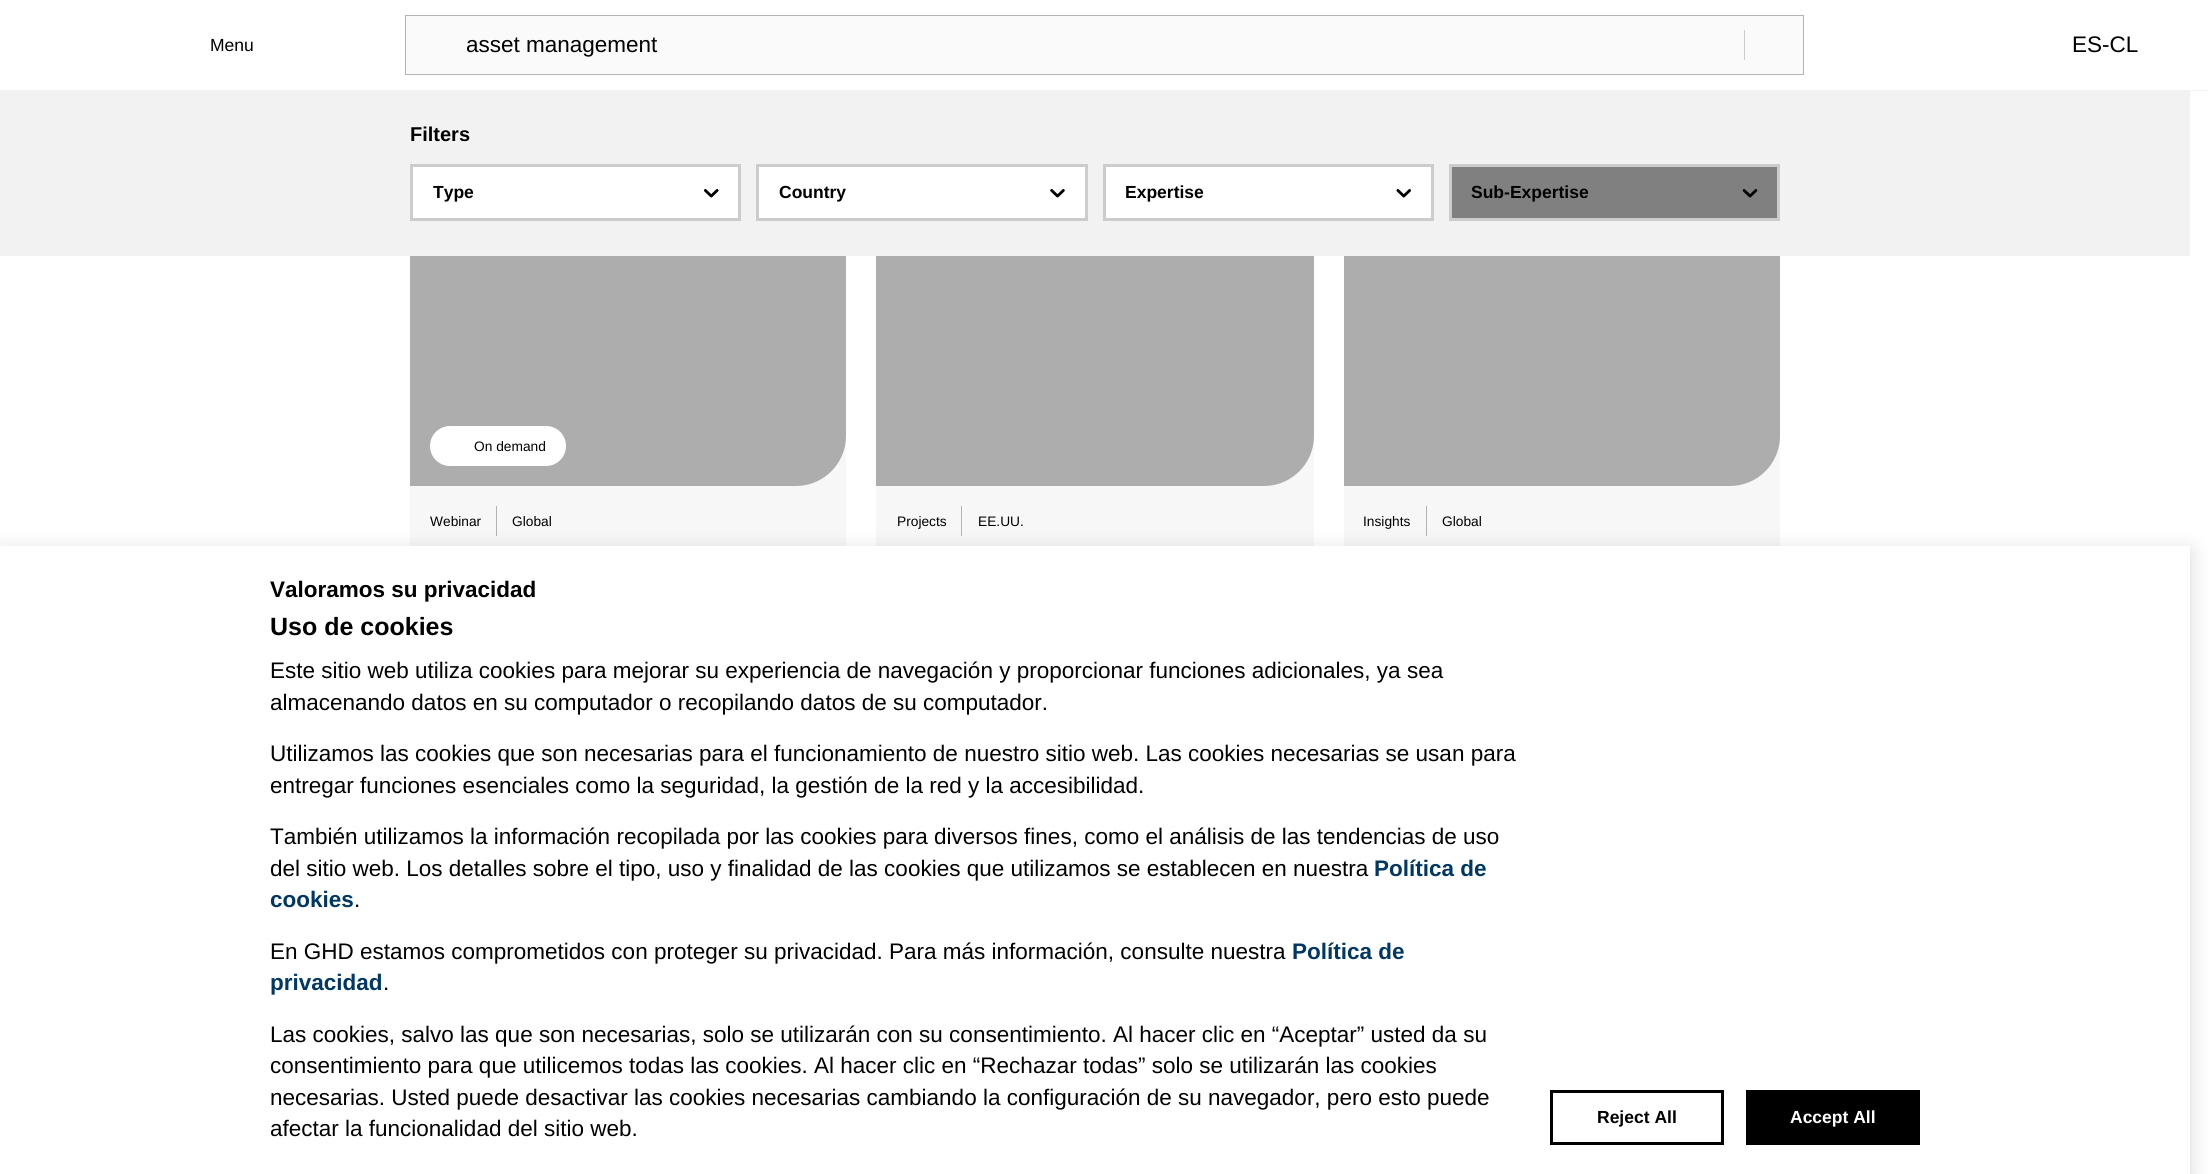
#include <cairo.h>
#include <math.h>
#include <stddef.h>

typedef struct { double x, y; const char *s; } line_t;

static void ink(cairo_t *ctx, unsigned color) {
    cairo_set_source_rgb(ctx, (color >> 16) / 255.0, (color >> 8 & 255) / 255.0, (color & 255) / 255.0);
}

static void round_path(cairo_t *ctx, double x, double y, double w, double h, double r) {
    cairo_new_sub_path(ctx);
    cairo_arc(ctx, x + w - r, y + h - r, r, 0, M_PI / 2);
    cairo_arc(ctx, x + r, y + h - r, r, M_PI / 2, M_PI);
    cairo_arc(ctx, x + r, y + r, r, M_PI, 1.5 * M_PI);
    cairo_arc(ctx, x + w - r, y + r, r, 1.5 * M_PI, 2 * M_PI);
    cairo_close_path(ctx);
}

static void blur_box(cairo_t *ctx, double x, double y, double w, double h, double r, double blur, double alpha) {
    cairo_push_group_with_content(ctx, CAIRO_CONTENT_ALPHA);
    cairo_set_operator(ctx, CAIRO_OPERATOR_SOURCE);
    for (int i = 15; i >= -15 && fmin(w, h) + blur * i / 3 > 0; i -= 2) {
        double e = blur * i / 6;
        cairo_set_source_rgba(ctx, 0, 0, 0, alpha * erfc((i - 1) / 8.5) / 2);
        round_path(ctx, x - e, y - e, w + 2 * e, h + 2 * e, fmax(0, fmin(r + e + blur * .6, fmin(w, h) / 2 + e)));
        cairo_fill(ctx);
    }
    cairo_pattern_t *soft = cairo_pop_group(ctx);
    cairo_mask(ctx, soft);
    cairo_pattern_destroy(soft);
}

static void paste(cairo_t *ctx, const char *path, double x, double y, double w, double h) {
    cairo_surface_t *image = cairo_image_surface_create_from_png(path);
    cairo_save(ctx);
    cairo_set_source_surface(ctx, image, x, y);
    cairo_rectangle(ctx, x, y, w, h);
    cairo_fill(ctx);
    cairo_restore(ctx);
    cairo_surface_destroy(image);
}

int main(void) {
    cairo_surface_t *surface = cairo_image_surface_create(CAIRO_FORMAT_RGB24, 2208, 1174);
    cairo_t *ctx = cairo_create(surface);
    cairo_font_options_t *options = cairo_font_options_create();
    cairo_font_options_set_hint_metrics(options, CAIRO_HINT_METRICS_OFF);
    cairo_font_options_set_hint_style(options, CAIRO_HINT_STYLE_NONE);
    cairo_set_font_options(ctx, options);
    cairo_set_miter_limit(ctx, 4);
    ink(ctx, 0xFFFFFF);
    cairo_paint(ctx);
    ink(ctx, 0xF2F2F2);
    cairo_rectangle(ctx, 0, 90, 2208, 1);
    cairo_fill(ctx);
    cairo_select_font_face(ctx, "Liberation Sans", CAIRO_FONT_SLANT_NORMAL, CAIRO_FONT_WEIGHT_NORMAL);
    cairo_set_font_size(ctx, 17.5);
    ink(ctx, 0x000000);
    cairo_move_to(ctx, 210, 51);
    cairo_show_text(ctx, "Menu");
    ink(ctx, 0xFAFAFA);
    cairo_rectangle(ctx, 405.5, 15.5, 1398, 59);
    cairo_fill_preserve(ctx);
    ink(ctx, 0xB3B3B3);
    cairo_set_line_width(ctx, 1);
    cairo_stroke(ctx);
    cairo_set_font_size(ctx, 22.5);
    ink(ctx, 0x000000);
    cairo_move_to(ctx, 466, 52);
    cairo_show_text(ctx, "asset management");
    ink(ctx, 0xCCCCCC);
    cairo_rectangle(ctx, 1744, 30, 1, 30);
    cairo_fill(ctx);
    ink(ctx, 0x000000);
    cairo_move_to(ctx, 2072, 52);
    cairo_show_text(ctx, "ES-CL");
    ink(ctx, 0xF7F7F7);
    cairo_rectangle(ctx, 410, 436, 436, 110);
    cairo_fill(ctx);
    ink(ctx, 0xADADAD);
    cairo_new_path(ctx);
    cairo_move_to(ctx, 410, 214);
    cairo_line_to(ctx, 846, 214);
    cairo_line_to(ctx, 846, 436);
    cairo_curve_to(ctx, 846, 463.5, 823.5, 486, 796, 486);
    cairo_line_to(ctx, 410, 486);
    cairo_close_path(ctx);
    cairo_fill(ctx);
    ink(ctx, 0xF7F7F7);
    cairo_rectangle(ctx, 876, 436, 438, 110);
    cairo_fill(ctx);
    ink(ctx, 0xADADAD);
    cairo_new_path(ctx);
    cairo_move_to(ctx, 876, 214);
    cairo_line_to(ctx, 1314, 214);
    cairo_line_to(ctx, 1314, 436);
    cairo_curve_to(ctx, 1314, 463.5, 1291.5, 486, 1264, 486);
    cairo_line_to(ctx, 876, 486);
    cairo_close_path(ctx);
    cairo_fill(ctx);
    ink(ctx, 0xF7F7F7);
    cairo_rectangle(ctx, 1344, 436, 436, 110);
    cairo_fill(ctx);
    ink(ctx, 0xADADAD);
    cairo_new_path(ctx);
    cairo_move_to(ctx, 1344, 214);
    cairo_line_to(ctx, 1780, 214);
    cairo_line_to(ctx, 1780, 436);
    cairo_curve_to(ctx, 1780, 463.5, 1757.5, 486, 1730, 486);
    cairo_line_to(ctx, 1344, 486);
    cairo_close_path(ctx);
    cairo_fill(ctx);
    ink(ctx, 0xF2F2F2);
    cairo_rectangle(ctx, 0, 91, 2190, 165);
    cairo_fill(ctx);
    cairo_select_font_face(ctx, "Liberation Sans", CAIRO_FONT_SLANT_NORMAL, CAIRO_FONT_WEIGHT_BOLD);
    cairo_set_font_size(ctx, 20);
    ink(ctx, 0x000000);
    cairo_move_to(ctx, 410, 141);
    cairo_show_text(ctx, "Filters");
    ink(ctx, 0xFFFFFF);
    cairo_rectangle(ctx, 411.5, 165.5, 328, 54);
    cairo_fill_preserve(ctx);
    ink(ctx, 0xCCCCCC);
    cairo_set_line_width(ctx, 3);
    cairo_stroke(ctx);
    cairo_set_font_size(ctx, 17.5);
    ink(ctx, 0x000000);
    cairo_move_to(ctx, 433, 198);
    cairo_show_text(ctx, "Type");
    paste(ctx, "media/1.png", 704, 189, 15, 9);
    ink(ctx, 0xFFFFFF);
    cairo_rectangle(ctx, 757.5, 165.5, 329, 54);
    cairo_fill_preserve(ctx);
    ink(ctx, 0xCCCCCC);
    cairo_stroke(ctx);
    ink(ctx, 0x000000);
    cairo_move_to(ctx, 779, 198);
    cairo_show_text(ctx, "Country");
    paste(ctx, "media/2.png", 1050, 189, 15, 9);
    ink(ctx, 0xFFFFFF);
    cairo_rectangle(ctx, 1104.5, 165.5, 328, 54);
    cairo_fill_preserve(ctx);
    ink(ctx, 0xCCCCCC);
    cairo_stroke(ctx);
    ink(ctx, 0x000000);
    cairo_move_to(ctx, 1125, 198);
    cairo_show_text(ctx, "Expertise");
    paste(ctx, "media/3.png", 1396, 189, 15, 9);
    ink(ctx, 0x808080);
    cairo_rectangle(ctx, 1450.5, 165.5, 328, 54);
    cairo_fill_preserve(ctx);
    ink(ctx, 0xCCCCCC);
    cairo_stroke(ctx);
    ink(ctx, 0x000000);
    cairo_move_to(ctx, 1471, 198);
    cairo_show_text(ctx, "Sub-Expertise");
    paste(ctx, "media/4.png", 1742, 189, 16, 9);
    ink(ctx, 0xFFFFFF);
    round_path(ctx, 430, 426, 136, 40, 20);
    cairo_fill(ctx);
    cairo_select_font_face(ctx, "Liberation Sans", CAIRO_FONT_SLANT_NORMAL, CAIRO_FONT_WEIGHT_NORMAL);
    cairo_set_font_size(ctx, 13.75);
    ink(ctx, 0x000000);
    cairo_move_to(ctx, 474, 451);
    cairo_show_text(ctx, "On demand");
    cairo_move_to(ctx, 430, 526);
    cairo_show_text(ctx, "Webinar");
    ink(ctx, 0xB3B3B3);
    cairo_rectangle(ctx, 496, 506, 1, 30);
    cairo_fill(ctx);
    ink(ctx, 0x000000);
    cairo_move_to(ctx, 512, 526);
    cairo_show_text(ctx, "Global");
    cairo_move_to(ctx, 897, 526);
    cairo_show_text(ctx, "Projects");
    ink(ctx, 0xB3B3B3);
    cairo_rectangle(ctx, 961, 506, 1, 30);
    cairo_fill(ctx);
    ink(ctx, 0x000000);
    cairo_move_to(ctx, 978, 526);
    cairo_show_text(ctx, "EE.UU.");
    cairo_move_to(ctx, 1363, 526);
    cairo_show_text(ctx, "Insights");
    ink(ctx, 0xB3B3B3);
    cairo_rectangle(ctx, 1426, 506, 1, 30);
    cairo_fill(ctx);
    ink(ctx, 0x000000);
    cairo_move_to(ctx, 1442, 526);
    cairo_show_text(ctx, "Global");
    ink(ctx, 0x000000);
    blur_box(ctx, 0, 551, 2190, 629, 0, 11, 0.15);
    ink(ctx, 0xFFFFFF);
    cairo_rectangle(ctx, 0, 546, 2190, 628);
    cairo_fill(ctx);
    cairo_select_font_face(ctx, "Liberation Sans", CAIRO_FONT_SLANT_NORMAL, CAIRO_FONT_WEIGHT_BOLD);
    cairo_set_font_size(ctx, 22.5);
    ink(ctx, 0x000000);
    cairo_move_to(ctx, 270, 597);
    cairo_show_text(ctx, "Valoramos su privacidad");
    cairo_set_font_size(ctx, 25);
    cairo_move_to(ctx, 270, 635);
    cairo_show_text(ctx, "Uso de cookies");
    cairo_select_font_face(ctx, "Liberation Sans", CAIRO_FONT_SLANT_NORMAL, CAIRO_FONT_WEIGHT_NORMAL);
    cairo_set_font_size(ctx, 22.5);
    {
        static const line_t items[] = {
            {270, 678, "Este sitio web utiliza cookies para mejorar su experiencia de navegación y proporcionar funciones adicionales, ya sea"},
            {270, 710, "almacenando datos en su computador o recopilando datos de su computador."},
            {270, 761, "Utilizamos las cookies que son necesarias para el funcionamiento de nuestro sitio web. Las cookies necesarias se usan para"},
            {270, 793, "entregar funciones esenciales como la seguridad, la gestión de la red y la accesibilidad."},
            {270, 844, "También utilizamos la información recopilada por las cookies para diversos fines, como el análisis de las tendencias de uso"},
            {270, 876, "del sitio web. Los detalles sobre el tipo, uso y finalidad de las cookies que utilizamos se establecen en nuestra"},
        };
        for (size_t i = 0; i < sizeof items / sizeof *items; i++) {
            cairo_move_to(ctx, items[i].x, items[i].y);
            cairo_show_text(ctx, items[i].s);
        }
    }
    cairo_select_font_face(ctx, "Liberation Sans", CAIRO_FONT_SLANT_NORMAL, CAIRO_FONT_WEIGHT_BOLD);
    ink(ctx, 0x003763);
    cairo_move_to(ctx, 1374, 876);
    cairo_show_text(ctx, "Política de");
    cairo_move_to(ctx, 270, 907);
    cairo_show_text(ctx, "cookies");
    cairo_select_font_face(ctx, "Liberation Sans", CAIRO_FONT_SLANT_NORMAL, CAIRO_FONT_WEIGHT_NORMAL);
    ink(ctx, 0x000000);
    cairo_move_to(ctx, 354, 907);
    cairo_show_text(ctx, ".");
    cairo_move_to(ctx, 270, 959);
    cairo_show_text(ctx, "En GHD estamos comprometidos con proteger su privacidad. Para más información, consulte nuestra");
    cairo_select_font_face(ctx, "Liberation Sans", CAIRO_FONT_SLANT_NORMAL, CAIRO_FONT_WEIGHT_BOLD);
    ink(ctx, 0x003763);
    cairo_move_to(ctx, 1292, 959);
    cairo_show_text(ctx, "Política de");
    cairo_move_to(ctx, 270, 990);
    cairo_show_text(ctx, "privacidad");
    cairo_select_font_face(ctx, "Liberation Sans", CAIRO_FONT_SLANT_NORMAL, CAIRO_FONT_WEIGHT_NORMAL);
    ink(ctx, 0x000000);
    {
        static const line_t items[] = {
            {383, 990, "."},
            {270, 1042, "Las cookies, salvo las que son necesarias, solo se utilizarán con su consentimiento. Al hacer clic en “Aceptar” usted da su"},
            {270, 1073, "consentimiento para que utilicemos todas las cookies. Al hacer clic en “Rechazar todas” solo se utilizarán las cookies"},
            {270, 1105, "necesarias. Usted puede desactivar las cookies necesarias cambiando la configuración de su navegador, pero esto puede"},
            {270, 1136, "afectar la funcionalidad del sitio web."},
        };
        for (size_t i = 0; i < sizeof items / sizeof *items; i++) {
            cairo_move_to(ctx, items[i].x, items[i].y);
            cairo_show_text(ctx, items[i].s);
        }
    }
    cairo_rectangle(ctx, 1551.5, 1091.5, 171, 52);
    cairo_stroke(ctx);
    cairo_select_font_face(ctx, "Liberation Sans", CAIRO_FONT_SLANT_NORMAL, CAIRO_FONT_WEIGHT_BOLD);
    cairo_set_font_size(ctx, 17.5);
    cairo_move_to(ctx, 1597, 1123);
    cairo_show_text(ctx, "Reject All");
    cairo_rectangle(ctx, 1746, 1090, 174, 55);
    cairo_fill(ctx);
    ink(ctx, 0xFFFFFF);
    cairo_move_to(ctx, 1790, 1123);
    cairo_show_text(ctx, "Accept All");
    cairo_surface_write_to_png(surface, "image.png");
    cairo_font_options_destroy(options);
    cairo_destroy(ctx);
    cairo_surface_destroy(surface);
    return 0;
}
